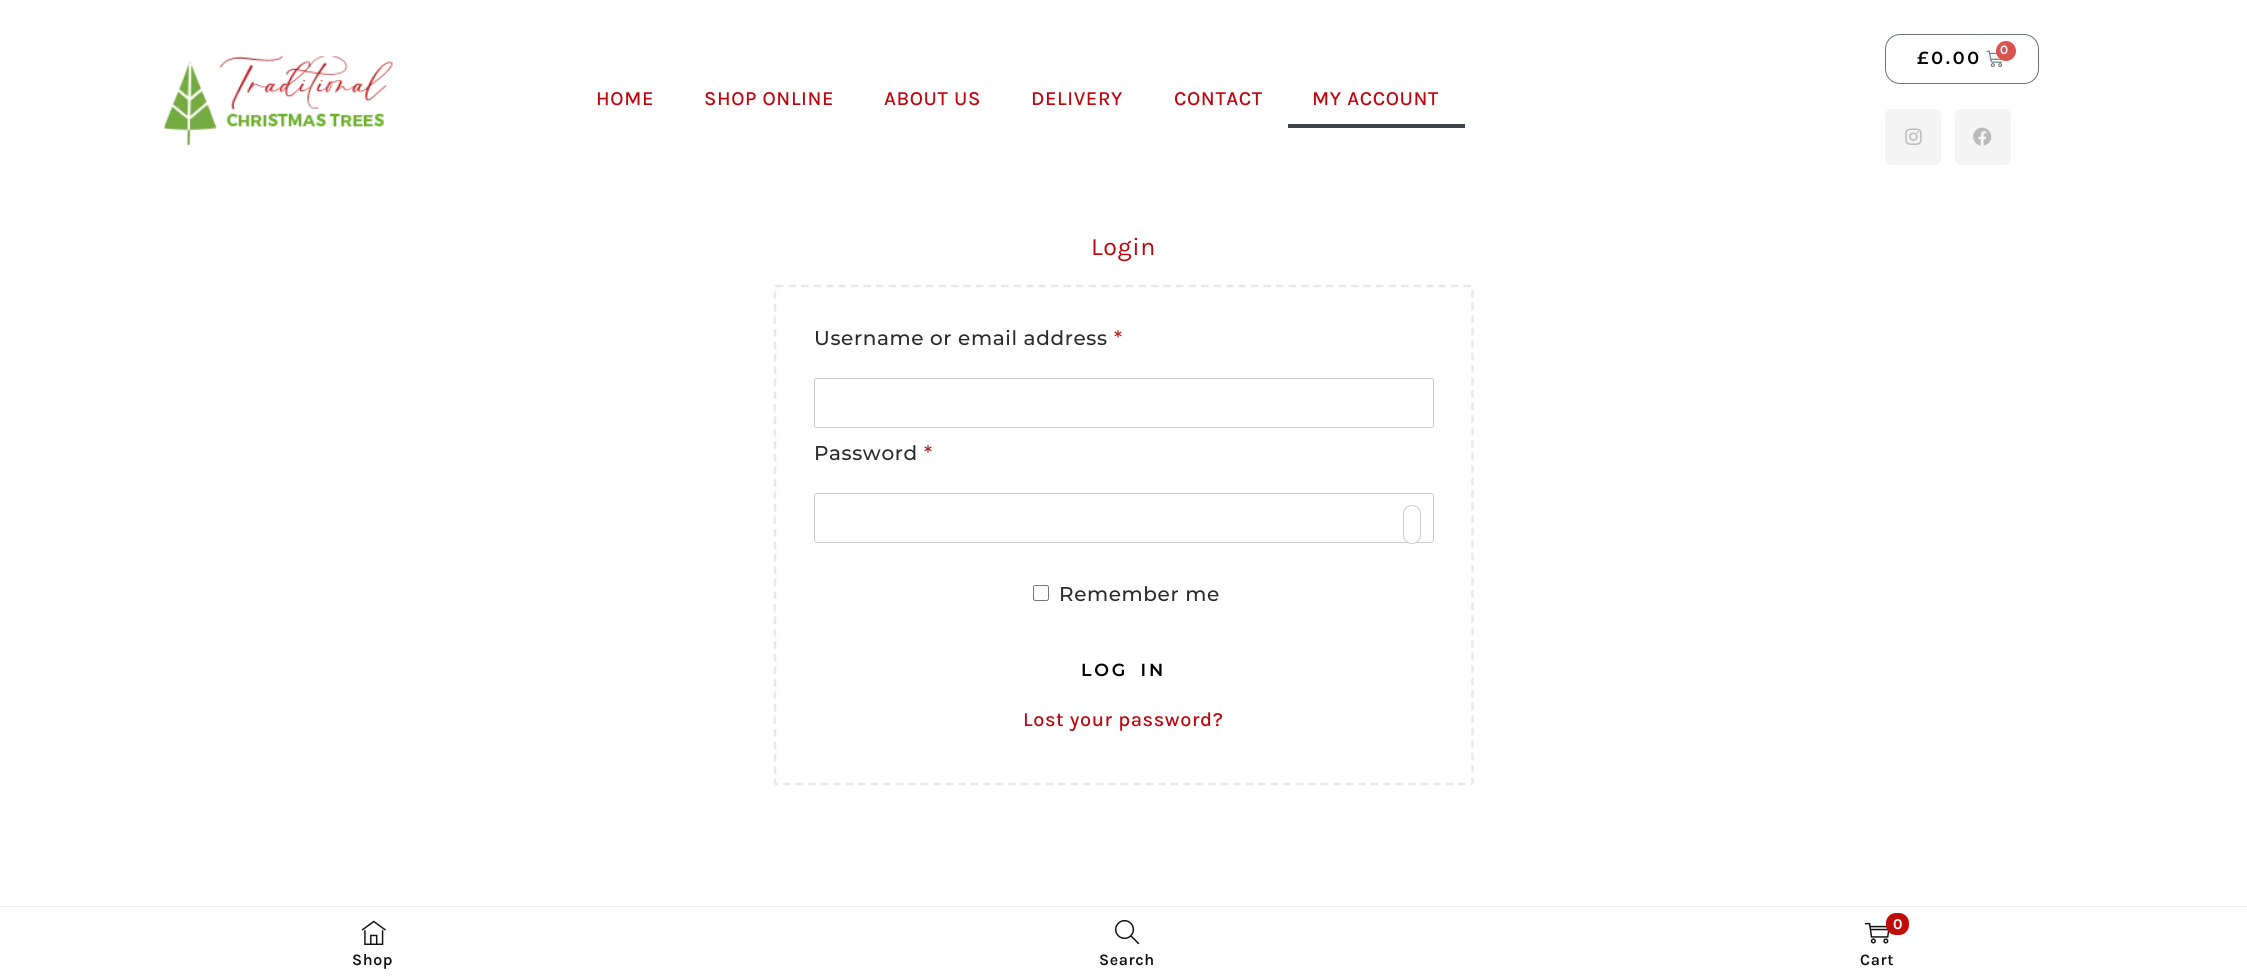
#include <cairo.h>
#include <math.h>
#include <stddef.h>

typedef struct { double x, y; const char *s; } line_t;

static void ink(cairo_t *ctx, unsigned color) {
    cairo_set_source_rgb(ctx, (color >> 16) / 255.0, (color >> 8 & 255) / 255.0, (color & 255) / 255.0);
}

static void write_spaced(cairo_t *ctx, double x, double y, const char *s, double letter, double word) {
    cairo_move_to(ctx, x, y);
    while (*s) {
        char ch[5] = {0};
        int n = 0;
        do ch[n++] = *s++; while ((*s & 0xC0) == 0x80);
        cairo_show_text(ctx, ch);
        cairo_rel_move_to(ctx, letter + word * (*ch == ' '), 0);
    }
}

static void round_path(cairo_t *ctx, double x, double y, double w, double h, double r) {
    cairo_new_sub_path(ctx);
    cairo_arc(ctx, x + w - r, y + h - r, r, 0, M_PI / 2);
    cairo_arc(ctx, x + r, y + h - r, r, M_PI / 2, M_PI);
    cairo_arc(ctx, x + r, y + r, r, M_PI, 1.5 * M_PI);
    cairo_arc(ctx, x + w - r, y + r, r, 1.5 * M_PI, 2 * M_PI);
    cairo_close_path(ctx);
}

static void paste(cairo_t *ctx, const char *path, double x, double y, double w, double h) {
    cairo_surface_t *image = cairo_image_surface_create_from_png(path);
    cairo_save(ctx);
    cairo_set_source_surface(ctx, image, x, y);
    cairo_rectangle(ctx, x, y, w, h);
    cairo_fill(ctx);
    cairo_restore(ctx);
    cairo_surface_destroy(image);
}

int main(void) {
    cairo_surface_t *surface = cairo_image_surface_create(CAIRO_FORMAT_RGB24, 2247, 979);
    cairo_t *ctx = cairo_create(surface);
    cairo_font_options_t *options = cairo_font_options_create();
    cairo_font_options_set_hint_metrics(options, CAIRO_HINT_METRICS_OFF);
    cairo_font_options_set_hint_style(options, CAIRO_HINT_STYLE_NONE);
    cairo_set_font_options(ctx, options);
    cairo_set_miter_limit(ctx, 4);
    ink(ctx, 0xFFFFFF);
    cairo_paint(ctx);
    paste(ctx, "media/1.png", 163, 56, 230, 90);
    cairo_select_font_face(ctx, "Karla Medium", CAIRO_FONT_SLANT_NORMAL, CAIRO_FONT_WEIGHT_NORMAL);
    cairo_set_font_size(ctx, 20);
    ink(ctx, 0xBE060E);
    {
        static const line_t items[] = {
            {596, 105, "HOME"},
            {704, 105, "SHOP ONLINE"},
            {884, 105, "ABOUT US"},
            {1031, 105, "DELIVERY"},
            {1174, 105, "CONTACT"},
            {1312, 105, "MY ACCOUNT"},
        };
        for (size_t i = 0; i < sizeof items / sizeof *items; i++) {
            write_spaced(ctx, items[i].x, items[i].y, items[i].s, 0.6, 0);
        }
    }
    ink(ctx, 0x3F444B);
    cairo_rectangle(ctx, 1288, 124, 177, 4);
    cairo_fill(ctx);
    round_path(ctx, 1885.5, 34.5, 153, 49, 14.5);
    ink(ctx, 0x69727D);
    cairo_set_line_width(ctx, 1);
    cairo_stroke(ctx);
    paste(ctx, "media/2.png", 1986, 50, 17, 17);
    ink(ctx, 0xD9534F);
    cairo_arc(ctx, 2006, 51, 10, 0, 2 * M_PI);
    cairo_fill(ctx);
    cairo_select_font_face(ctx, "Montserrat SemiBold", CAIRO_FONT_SLANT_NORMAL, CAIRO_FONT_WEIGHT_NORMAL);
    cairo_set_font_size(ctx, 12);
    ink(ctx, 0xFFFFFF);
    write_spaced(ctx, 2000, 54, "0", 2.75, 0);
    cairo_set_font_size(ctx, 17.5);
    ink(ctx, 0x000000);
    write_spaced(ctx, 1917, 64, "£0.00", 2.75, 0);
    ink(ctx, 0xF4F4F4);
    round_path(ctx, 1885, 109, 56, 56, 6);
    cairo_fill(ctx);
    paste(ctx, "media/3.png", 1905, 128, 17, 17);
    round_path(ctx, 1955, 109, 56, 56, 6);
    cairo_fill(ctx);
    paste(ctx, "media/4.png", 1973, 127, 19, 19);
    cairo_select_font_face(ctx, "Karla", CAIRO_FONT_SLANT_NORMAL, CAIRO_FONT_WEIGHT_NORMAL);
    cairo_set_font_size(ctx, 25);
    ink(ctx, 0xBE060E);
    write_spaced(ctx, 1091, 255, "Login", 0.6, 0);
    cairo_new_path(ctx);
    cairo_move_to(ctx, 776, 286);
    cairo_line_to(ctx, 1471, 286);
    cairo_curve_to(ctx, 1472, 286, 1472.5, 287, 1472.5, 287.5);
    cairo_line_to(ctx, 1472.5, 782.5);
    cairo_curve_to(ctx, 1472.5, 783, 1472, 784, 1471, 784);
    cairo_line_to(ctx, 776, 784);
    cairo_curve_to(ctx, 775.5, 784, 775, 783, 775, 782.5);
    cairo_line_to(ctx, 775, 287.5);
    cairo_curve_to(ctx, 775, 287, 775.5, 286, 776, 286);
    cairo_close_path(ctx);
    ink(ctx, 0xE8E8E8);
    cairo_set_line_width(ctx, 2.5);
    cairo_set_dash(ctx, (double[]){7.5, 5}, 2, 0);
    cairo_stroke(ctx);
    cairo_select_font_face(ctx, "Montserrat Medium", CAIRO_FONT_SLANT_NORMAL, CAIRO_FONT_WEIGHT_NORMAL);
    cairo_set_font_size(ctx, 20);
    ink(ctx, 0x2B2B2B);
    write_spaced(ctx, 814, 345, "Username or email address", 0.6, 0);
    ink(ctx, 0xB22222);
    write_spaced(ctx, 1114, 345, "*", 0.6, 0);
    round_path(ctx, 814.5, 378.5, 619, 49, 2);
    ink(ctx, 0xCCCCCC);
    cairo_set_line_width(ctx, 1);
    cairo_set_dash(ctx, NULL, 0, 0);
    cairo_stroke(ctx);
    ink(ctx, 0x2B2B2B);
    write_spaced(ctx, 814, 460, "Password", 0.6, 0);
    ink(ctx, 0xB22222);
    write_spaced(ctx, 924, 460, "*", 0.6, 0);
    round_path(ctx, 814.5, 493.5, 619, 49, 2);
    ink(ctx, 0xCCCCCC);
    cairo_stroke(ctx);
    ink(ctx, 0xFFFFFF);
    round_path(ctx, 1403.5, 505.5, 17, 38, 8.5);
    cairo_fill_preserve(ctx);
    ink(ctx, 0xCCCCCC);
    cairo_stroke(ctx);
    round_path(ctx, 1033.5, 585.5, 15, 15, 2);
    ink(ctx, 0x767676);
    cairo_stroke(ctx);
    ink(ctx, 0x2B2B2B);
    write_spaced(ctx, 1059, 601, "Remember me", 0.6, 0);
    cairo_select_font_face(ctx, "Montserrat SemiBold", CAIRO_FONT_SLANT_NORMAL, CAIRO_FONT_WEIGHT_NORMAL);
    cairo_set_font_size(ctx, 17.5);
    ink(ctx, 0x000000);
    write_spaced(ctx, 1081, 676, "LOG IN", 2.75, 5);
    cairo_select_font_face(ctx, "Karla Medium", CAIRO_FONT_SLANT_NORMAL, CAIRO_FONT_WEIGHT_NORMAL);
    cairo_set_font_size(ctx, 20);
    ink(ctx, 0xBE060E);
    write_spaced(ctx, 1023, 726, "Lost your password?", 0.6, 0);
    ink(ctx, 0xEAEAEA);
    cairo_rectangle(ctx, 0, 906, 2247, 1);
    cairo_fill(ctx);
    paste(ctx, "media/5.png", 361, 920, 25, 25);
    cairo_select_font_face(ctx, "Karla SemiBold", CAIRO_FONT_SLANT_NORMAL, CAIRO_FONT_WEIGHT_NORMAL);
    cairo_set_font_size(ctx, 16);
    ink(ctx, 0x111111);
    write_spaced(ctx, 352, 965, "Shop", 0.6, 0);
    paste(ctx, "media/6.png", 1115, 920, 25, 25);
    write_spaced(ctx, 1099, 965, "Search", 0.6, 0);
    paste(ctx, "media/7.png", 1865, 922, 25, 22);
    ink(ctx, 0xC00B09);
    round_path(ctx, 1886, 913, 23, 22, 10);
    cairo_fill(ctx);
    cairo_select_font_face(ctx, "Karla", CAIRO_FONT_SLANT_NORMAL, CAIRO_FONT_WEIGHT_BOLD);
    cairo_set_font_size(ctx, 15);
    ink(ctx, 0xFFFFFF);
    write_spaced(ctx, 1893, 929, "0", 0.6, 0);
    cairo_select_font_face(ctx, "Karla SemiBold", CAIRO_FONT_SLANT_NORMAL, CAIRO_FONT_WEIGHT_NORMAL);
    cairo_set_font_size(ctx, 16);
    ink(ctx, 0x111111);
    write_spaced(ctx, 1860, 965, "Cart", 0.6, 0);
    cairo_surface_write_to_png(surface, "image.png");
    cairo_font_options_destroy(options);
    cairo_destroy(ctx);
    cairo_surface_destroy(surface);
    return 0;
}
